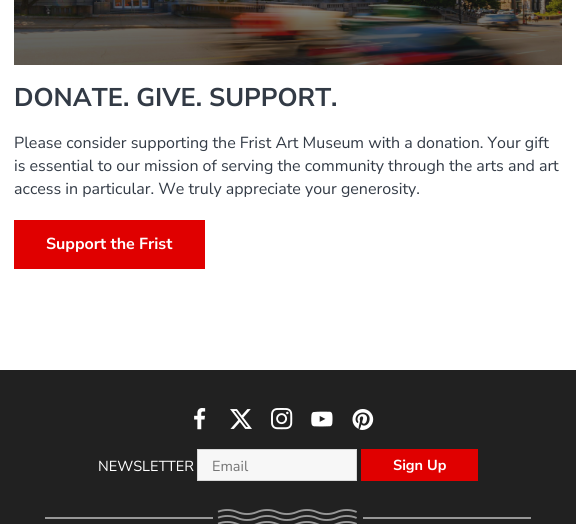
#include <cairo.h>
#include <math.h>
#include <stddef.h>

typedef struct { double x, y; const char *s; } line_t;

static void ink(cairo_t *ctx, unsigned color) {
    cairo_set_source_rgb(ctx, (color >> 16) / 255.0, (color >> 8 & 255) / 255.0, (color & 255) / 255.0);
}

static void paste(cairo_t *ctx, const char *path, double x, double y, double w, double h) {
    cairo_surface_t *image = cairo_image_surface_create_from_png(path);
    cairo_save(ctx);
    cairo_set_source_surface(ctx, image, x, y);
    cairo_rectangle(ctx, x, y, w, h);
    cairo_fill(ctx);
    cairo_restore(ctx);
    cairo_surface_destroy(image);
}

int main(void) {
    cairo_surface_t *surface = cairo_image_surface_create(CAIRO_FORMAT_RGB24, 576, 524);
    cairo_t *ctx = cairo_create(surface);
    cairo_font_options_t *options = cairo_font_options_create();
    cairo_font_options_set_hint_metrics(options, CAIRO_HINT_METRICS_OFF);
    cairo_font_options_set_hint_style(options, CAIRO_HINT_STYLE_NONE);
    cairo_set_font_options(ctx, options);
    cairo_set_miter_limit(ctx, 4);
    ink(ctx, 0xFFFFFF);
    cairo_paint(ctx);
    paste(ctx, "media/1.png", 14, 0, 548, 65);
    cairo_select_font_face(ctx, "Nunito Sans", CAIRO_FONT_SLANT_NORMAL, CAIRO_FONT_WEIGHT_BOLD);
    cairo_set_font_size(ctx, 25.6);
    ink(ctx, 0x323A45);
    cairo_move_to(ctx, 14, 106);
    cairo_show_text(ctx, "DONATE. GIVE. SUPPORT.");
    cairo_select_font_face(ctx, "Nunito Sans", CAIRO_FONT_SLANT_NORMAL, CAIRO_FONT_WEIGHT_NORMAL);
    cairo_set_font_size(ctx, 16);
    {
        static const line_t items[] = {
            {14, 148, "Please consider supporting the Frist Art Museum with a donation. Your gift"},
            {14, 171, "is essential to our mission of serving the community through the arts and art"},
            {14, 194, "access in particular. We truly appreciate your generosity."},
        };
        for (size_t i = 0; i < sizeof items / sizeof *items; i++) {
            cairo_move_to(ctx, items[i].x, items[i].y);
            cairo_show_text(ctx, items[i].s);
        }
    }
    ink(ctx, 0xE00000);
    cairo_rectangle(ctx, 14, 220, 191, 49);
    cairo_fill(ctx);
    cairo_select_font_face(ctx, "Nunito Sans", CAIRO_FONT_SLANT_NORMAL, CAIRO_FONT_WEIGHT_BOLD);
    ink(ctx, 0xFFFFFF);
    cairo_move_to(ctx, 46, 249);
    cairo_show_text(ctx, "Support the Frist");
    ink(ctx, 0x212121);
    cairo_rectangle(ctx, 0, 370, 576, 154);
    cairo_fill(ctx);
    paste(ctx, "media/2.png", 194, 408, 12, 22);
    paste(ctx, "media/3.png", 230, 409, 22, 20);
    paste(ctx, "media/4.png", 271, 408, 22, 22);
    paste(ctx, "media/5.png", 311, 411, 22, 16);
    paste(ctx, "media/6.png", 352, 409, 22, 21);
    cairo_select_font_face(ctx, "Nunito Sans", CAIRO_FONT_SLANT_NORMAL, CAIRO_FONT_WEIGHT_NORMAL);
    cairo_set_font_size(ctx, 14.5);
    ink(ctx, 0xFFFFFF);
    cairo_move_to(ctx, 98, 471);
    cairo_show_text(ctx, "NEWSLETTER");
    ink(ctx, 0xF7F7F7);
    cairo_rectangle(ctx, 197.5, 449.5, 159, 31);
    cairo_fill_preserve(ctx);
    ink(ctx, 0xD8D8D8);
    cairo_set_line_width(ctx, 1);
    cairo_stroke(ctx);
    ink(ctx, 0x757575);
    cairo_move_to(ctx, 212, 471);
    cairo_show_text(ctx, "Email");
    ink(ctx, 0xE00000);
    cairo_rectangle(ctx, 361, 449, 117, 32);
    cairo_fill(ctx);
    cairo_select_font_face(ctx, "Nunito Sans", CAIRO_FONT_SLANT_NORMAL, CAIRO_FONT_WEIGHT_BOLD);
    ink(ctx, 0xFFFFFF);
    cairo_move_to(ctx, 393, 470);
    cairo_show_text(ctx, "Sign Up");
    ink(ctx, 0x979797);
    cairo_rectangle(ctx, 45, 517, 168, 2);
    cairo_fill(ctx);
    paste(ctx, "media/7.png", 217, 509, 140, 15);
    cairo_rectangle(ctx, 363, 517, 168, 2);
    cairo_fill(ctx);
    cairo_surface_write_to_png(surface, "image.png");
    cairo_font_options_destroy(options);
    cairo_destroy(ctx);
    cairo_surface_destroy(surface);
    return 0;
}
